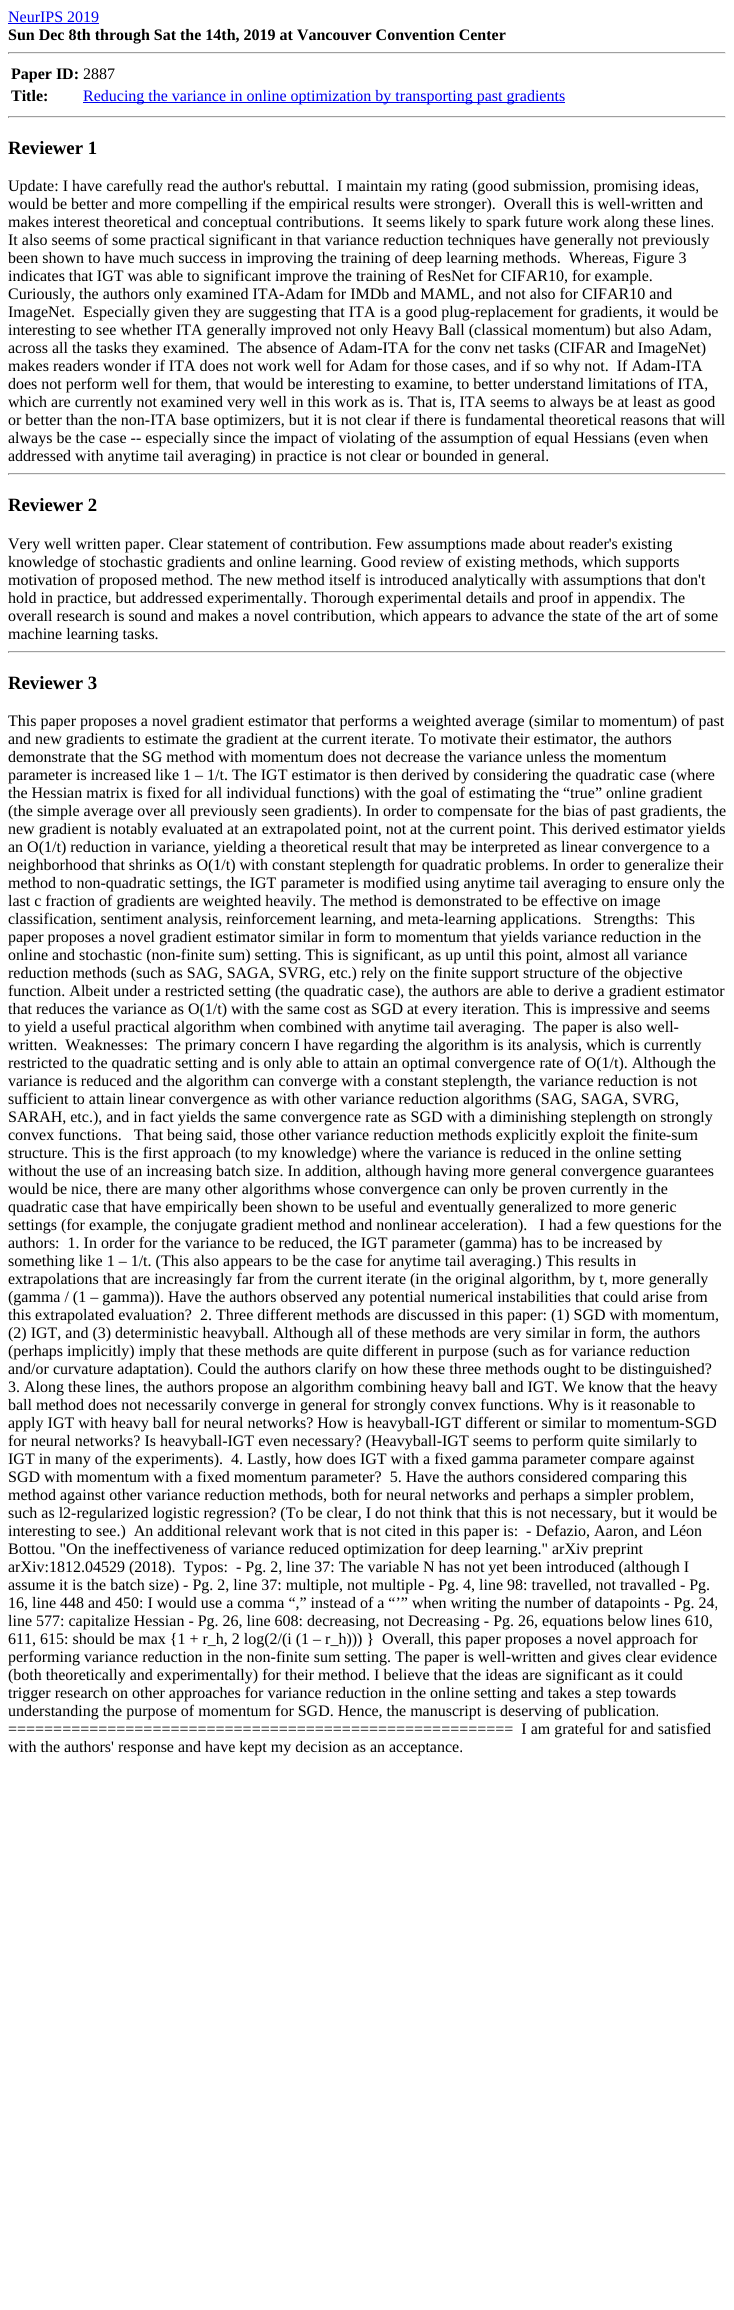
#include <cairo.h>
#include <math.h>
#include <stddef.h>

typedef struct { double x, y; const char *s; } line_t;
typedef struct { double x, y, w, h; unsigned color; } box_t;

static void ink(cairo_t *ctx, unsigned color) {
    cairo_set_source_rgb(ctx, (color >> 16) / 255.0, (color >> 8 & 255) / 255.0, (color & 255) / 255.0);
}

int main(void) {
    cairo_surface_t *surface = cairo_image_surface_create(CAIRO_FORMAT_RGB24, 734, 2310);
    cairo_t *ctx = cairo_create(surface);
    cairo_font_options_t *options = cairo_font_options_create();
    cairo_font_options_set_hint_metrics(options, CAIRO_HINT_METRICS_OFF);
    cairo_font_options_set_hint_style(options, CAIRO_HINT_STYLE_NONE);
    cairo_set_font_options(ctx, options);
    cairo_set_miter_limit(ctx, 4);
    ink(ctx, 0xFFFFFF);
    cairo_paint(ctx);
    cairo_select_font_face(ctx, "Liberation Serif", CAIRO_FONT_SLANT_NORMAL, CAIRO_FONT_WEIGHT_NORMAL);
    cairo_set_font_size(ctx, 16);
    ink(ctx, 0x0000EE);
    cairo_move_to(ctx, 8, 22);
    cairo_show_text(ctx, "NeurIPS 2019");
    cairo_rectangle(ctx, 8, 23, 91, 1);
    cairo_fill(ctx);
    cairo_select_font_face(ctx, "Liberation Serif", CAIRO_FONT_SLANT_NORMAL, CAIRO_FONT_WEIGHT_BOLD);
    ink(ctx, 0x000000);
    cairo_move_to(ctx, 8, 40);
    cairo_show_text(ctx, "Sun Dec 8th through Sat the 14th, 2019 at Vancouver Convention Center");
    {
        static const box_t items[] = {
            {8, 52, 718, 1, 0x9F9F9F},
            {725, 52, 1, 2, 0xEEEEEE},
            {8, 53, 718, 1, 0xEEEEEE},
            {8, 52, 1, 2, 0x9F9F9F},
        };
        for (size_t i = 0; i < sizeof items / sizeof *items; i++) {
            ink(ctx, items[i].color);
            cairo_rectangle(ctx, items[i].x, items[i].y, items[i].w, items[i].h);
            cairo_fill(ctx);
        }
    }
    ink(ctx, 0x000000);
    cairo_move_to(ctx, 11, 79);
    cairo_show_text(ctx, "Paper ID:");
    cairo_select_font_face(ctx, "Liberation Serif", CAIRO_FONT_SLANT_NORMAL, CAIRO_FONT_WEIGHT_NORMAL);
    cairo_move_to(ctx, 83, 79);
    cairo_show_text(ctx, "2887");
    cairo_select_font_face(ctx, "Liberation Serif", CAIRO_FONT_SLANT_NORMAL, CAIRO_FONT_WEIGHT_BOLD);
    cairo_move_to(ctx, 11, 101);
    cairo_show_text(ctx, "Title:");
    ink(ctx, 0x0000EE);
    cairo_rectangle(ctx, 83, 102, 482, 1);
    cairo_fill(ctx);
    cairo_select_font_face(ctx, "Liberation Serif", CAIRO_FONT_SLANT_NORMAL, CAIRO_FONT_WEIGHT_NORMAL);
    cairo_move_to(ctx, 83, 101);
    cairo_show_text(ctx, "Reducing the variance in online optimization by transporting past gradients");
    {
        static const box_t items[] = {
            {8, 116, 718, 1, 0x9F9F9F},
            {725, 116, 1, 2, 0xEEEEEE},
            {8, 117, 718, 1, 0xEEEEEE},
            {8, 116, 1, 2, 0x9F9F9F},
        };
        for (size_t i = 0; i < sizeof items / sizeof *items; i++) {
            ink(ctx, items[i].color);
            cairo_rectangle(ctx, items[i].x, items[i].y, items[i].w, items[i].h);
            cairo_fill(ctx);
        }
    }
    cairo_select_font_face(ctx, "Liberation Serif", CAIRO_FONT_SLANT_NORMAL, CAIRO_FONT_WEIGHT_BOLD);
    cairo_set_font_size(ctx, 18.75);
    ink(ctx, 0x000000);
    cairo_move_to(ctx, 8, 154);
    cairo_show_text(ctx, "Reviewer 1");
    cairo_select_font_face(ctx, "Liberation Serif", CAIRO_FONT_SLANT_NORMAL, CAIRO_FONT_WEIGHT_NORMAL);
    cairo_set_font_size(ctx, 16);
    {
        static const line_t items[] = {
            {8, 191, "Update: I have carefully read the author's rebuttal.  I maintain my rating (good submission, promising ideas,"},
            {8, 209, "would be better and more compelling if the empirical results were stronger).  Overall this is well-written and"},
            {8, 227, "makes interest theoretical and conceptual contributions.  It seems likely to spark future work along these lines."},
            {8, 245, "It also seems of some practical significant in that variance reduction techniques have generally not previously"},
            {8, 263, "been shown to have much success in improving the training of deep learning methods.  Whereas, Figure 3"},
            {8, 281, "indicates that IGT was able to significant improve the training of ResNet for CIFAR10, for example."},
            {8, 299, "Curiously, the authors only examined ITA-Adam for IMDb and MAML, and not also for CIFAR10 and"},
            {8, 317, "ImageNet.  Especially given they are suggesting that ITA is a good plug-replacement for gradients, it would be"},
            {8, 335, "interesting to see whether ITA generally improved not only Heavy Ball (classical momentum) but also Adam,"},
            {8, 353, "across all the tasks they examined.  The absence of Adam-ITA for the conv net tasks (CIFAR and ImageNet)"},
            {8, 371, "makes readers wonder if ITA does not work well for Adam for those cases, and if so why not.  If Adam-ITA"},
            {8, 389, "does not perform well for them, that would be interesting to examine, to better understand limitations of ITA,"},
            {8, 407, "which are currently not examined very well in this work as is. That is, ITA seems to always be at least as good"},
            {8, 425, "or better than the non-ITA base optimizers, but it is not clear if there is fundamental theoretical reasons that will"},
            {8, 443, "always be the case -- especially since the impact of violating of the assumption of equal Hessians (even when"},
            {8, 461, "addressed with anytime tail averaging) in practice is not clear or bounded in general."},
        };
        for (size_t i = 0; i < sizeof items / sizeof *items; i++) {
            cairo_move_to(ctx, items[i].x, items[i].y);
            cairo_show_text(ctx, items[i].s);
        }
    }
    {
        static const box_t items[] = {
            {8, 473, 718, 1, 0x9F9F9F},
            {725, 473, 1, 2, 0xEEEEEE},
            {8, 474, 718, 1, 0xEEEEEE},
            {8, 473, 1, 2, 0x9F9F9F},
        };
        for (size_t i = 0; i < sizeof items / sizeof *items; i++) {
            ink(ctx, items[i].color);
            cairo_rectangle(ctx, items[i].x, items[i].y, items[i].w, items[i].h);
            cairo_fill(ctx);
        }
    }
    cairo_select_font_face(ctx, "Liberation Serif", CAIRO_FONT_SLANT_NORMAL, CAIRO_FONT_WEIGHT_BOLD);
    cairo_set_font_size(ctx, 18.75);
    ink(ctx, 0x000000);
    cairo_move_to(ctx, 8, 511);
    cairo_show_text(ctx, "Reviewer 2");
    cairo_select_font_face(ctx, "Liberation Serif", CAIRO_FONT_SLANT_NORMAL, CAIRO_FONT_WEIGHT_NORMAL);
    cairo_set_font_size(ctx, 16);
    {
        static const line_t items[] = {
            {8, 549, "Very well written paper. Clear statement of contribution. Few assumptions made about reader's existing"},
            {8, 567, "knowledge of stochastic gradients and online learning. Good review of existing methods, which supports"},
            {8, 585, "motivation of proposed method. The new method itself is introduced analytically with assumptions that don't"},
            {8, 603, "hold in practice, but addressed experimentally. Thorough experimental details and proof in appendix. The"},
            {8, 621, "overall research is sound and makes a novel contribution, which appears to advance the state of the art of some"},
            {8, 639, "machine learning tasks."},
        };
        for (size_t i = 0; i < sizeof items / sizeof *items; i++) {
            cairo_move_to(ctx, items[i].x, items[i].y);
            cairo_show_text(ctx, items[i].s);
        }
    }
    {
        static const box_t items[] = {
            {8, 651, 718, 1, 0x9F9F9F},
            {725, 651, 1, 2, 0xEEEEEE},
            {8, 652, 718, 1, 0xEEEEEE},
            {8, 651, 1, 2, 0x9F9F9F},
        };
        for (size_t i = 0; i < sizeof items / sizeof *items; i++) {
            ink(ctx, items[i].color);
            cairo_rectangle(ctx, items[i].x, items[i].y, items[i].w, items[i].h);
            cairo_fill(ctx);
        }
    }
    cairo_select_font_face(ctx, "Liberation Serif", CAIRO_FONT_SLANT_NORMAL, CAIRO_FONT_WEIGHT_BOLD);
    cairo_set_font_size(ctx, 18.75);
    ink(ctx, 0x000000);
    cairo_move_to(ctx, 8, 689);
    cairo_show_text(ctx, "Reviewer 3");
    cairo_select_font_face(ctx, "Liberation Serif", CAIRO_FONT_SLANT_NORMAL, CAIRO_FONT_WEIGHT_NORMAL);
    cairo_set_font_size(ctx, 16);
    {
        static const line_t items[] = {
            {8, 726, "This paper proposes a novel gradient estimator that performs a weighted average (similar to momentum) of past"},
            {8, 744, "and new gradients to estimate the gradient at the current iterate. To motivate their estimator, the authors"},
            {8, 762, "demonstrate that the SG method with momentum does not decrease the variance unless the momentum"},
            {8, 780, "parameter is increased like 1 – 1/t. The IGT estimator is then derived by considering the quadratic case (where"},
            {8, 798, "the Hessian matrix is fixed for all individual functions) with the goal of estimating the “true” online gradient"},
            {8, 816, "(the simple average over all previously seen gradients). In order to compensate for the bias of past gradients, the"},
            {8, 834, "new gradient is notably evaluated at an extrapolated point, not at the current point. This derived estimator yields"},
            {8, 852, "an O(1/t) reduction in variance, yielding a theoretical result that may be interpreted as linear convergence to a"},
            {8, 870, "neighborhood that shrinks as O(1/t) with constant steplength for quadratic problems. In order to generalize their"},
            {8, 888, "method to non-quadratic settings, the IGT parameter is modified using anytime tail averaging to ensure only the"},
            {8, 906, "last c fraction of gradients are weighted heavily. The method is demonstrated to be effective on image"},
            {8, 924, "classification, sentiment analysis, reinforcement learning, and meta-learning applications.   Strengths:  This"},
            {8, 942, "paper proposes a novel gradient estimator similar in form to momentum that yields variance reduction in the"},
            {8, 960, "online and stochastic (non-finite sum) setting. This is significant, as up until this point, almost all variance"},
            {8, 978, "reduction methods (such as SAG, SAGA, SVRG, etc.) rely on the finite support structure of the objective"},
            {8, 996, "function. Albeit under a restricted setting (the quadratic case), the authors are able to derive a gradient estimator"},
            {8, 1014, "that reduces the variance as O(1/t) with the same cost as SGD at every iteration. This is impressive and seems"},
            {8, 1032, "to yield a useful practical algorithm when combined with anytime tail averaging.  The paper is also well-"},
            {8, 1050, "written.  Weaknesses:  The primary concern I have regarding the algorithm is its analysis, which is currently"},
            {8, 1068, "restricted to the quadratic setting and is only able to attain an optimal convergence rate of O(1/t). Although the"},
            {8, 1086, "variance is reduced and the algorithm can converge with a constant steplength, the variance reduction is not"},
            {8, 1104, "sufficient to attain linear convergence as with other variance reduction algorithms (SAG, SAGA, SVRG,"},
            {8, 1122, "SARAH, etc.), and in fact yields the same convergence rate as SGD with a diminishing steplength on strongly"},
            {8, 1140, "convex functions.   That being said, those other variance reduction methods explicitly exploit the finite-sum"},
            {8, 1158, "structure. This is the first approach (to my knowledge) where the variance is reduced in the online setting"},
            {8, 1176, "without the use of an increasing batch size. In addition, although having more general convergence guarantees"},
            {8, 1194, "would be nice, there are many other algorithms whose convergence can only be proven currently in the"},
            {8, 1212, "quadratic case that have empirically been shown to be useful and eventually generalized to more generic"},
            {8, 1230, "settings (for example, the conjugate gradient method and nonlinear acceleration).   I had a few questions for the"},
            {8, 1248, "authors:  1. In order for the variance to be reduced, the IGT parameter (gamma) has to be increased by"},
            {8, 1266, "something like 1 – 1/t. (This also appears to be the case for anytime tail averaging.) This results in"},
            {8, 1284, "extrapolations that are increasingly far from the current iterate (in the original algorithm, by t, more generally"},
            {8, 1302, "(gamma / (1 – gamma)). Have the authors observed any potential numerical instabilities that could arise from"},
            {8, 1320, "this extrapolated evaluation?  2. Three different methods are discussed in this paper: (1) SGD with momentum,"},
            {8, 1338, "(2) IGT, and (3) deterministic heavyball. Although all of these methods are very similar in form, the authors"},
            {8, 1356, "(perhaps implicitly) imply that these methods are quite different in purpose (such as for variance reduction"},
            {8, 1374, "and/or curvature adaptation). Could the authors clarify on how these three methods ought to be distinguished?"},
            {8, 1392, "3. Along these lines, the authors propose an algorithm combining heavy ball and IGT. We know that the heavy"},
            {8, 1410, "ball method does not necessarily converge in general for strongly convex functions. Why is it reasonable to"},
            {8, 1428, "apply IGT with heavy ball for neural networks? How is heavyball-IGT different or similar to momentum-SGD"},
            {8, 1446, "for neural networks? Is heavyball-IGT even necessary? (Heavyball-IGT seems to perform quite similarly to"},
            {8, 1464, "IGT in many of the experiments).  4. Lastly, how does IGT with a fixed gamma parameter compare against"},
            {8, 1482, "SGD with momentum with a fixed momentum parameter?  5. Have the authors considered comparing this"},
            {8, 1500, "method against other variance reduction methods, both for neural networks and perhaps a simpler problem,"},
            {8, 1518, "such as l2-regularized logistic regression? (To be clear, I do not think that this is not necessary, but it would be"},
            {8, 1536, "interesting to see.)  An additional relevant work that is not cited in this paper is:  - Defazio, Aaron, and Léon"},
            {8, 1554, "Bottou. \"On the ineffectiveness of variance reduced optimization for deep learning.\" arXiv preprint"},
            {8, 1572, "arXiv:1812.04529 (2018).  Typos:  - Pg. 2, line 37: The variable N has not yet been introduced (although I"},
            {8, 1590, "assume it is the batch size) - Pg. 2, line 37: multiple, not multiple - Pg. 4, line 98: travelled, not travalled - Pg."},
            {8, 1608, "16, line 448 and 450: I would use a comma “,” instead of a “’” when writing the number of datapoints - Pg. 24,"},
            {8, 1626, "line 577: capitalize Hessian - Pg. 26, line 608: decreasing, not Decreasing - Pg. 26, equations below lines 610,"},
            {8, 1644, "611, 615: should be max {1 + r_h, 2 log(2/(i (1 – r_h))) }  Overall, this paper proposes a novel approach for"},
            {8, 1662, "performing variance reduction in the non-finite sum setting. The paper is well-written and gives clear evidence"},
            {8, 1680, "(both theoretically and experimentally) for their method. I believe that the ideas are significant as it could"},
            {8, 1698, "trigger research on other approaches for variance reduction in the online setting and takes a step towards"},
            {8, 1716, "understanding the purpose of momentum for SGD. Hence, the manuscript is deserving of publication."},
            {8, 1734, "========================================================  I am grateful for and satisfied"},
            {8, 1752, "with the authors' response and have kept my decision as an acceptance."},
        };
        for (size_t i = 0; i < sizeof items / sizeof *items; i++) {
            cairo_move_to(ctx, items[i].x, items[i].y);
            cairo_show_text(ctx, items[i].s);
        }
    }
    cairo_surface_write_to_png(surface, "image.png");
    cairo_font_options_destroy(options);
    cairo_destroy(ctx);
    cairo_surface_destroy(surface);
    return 0;
}
